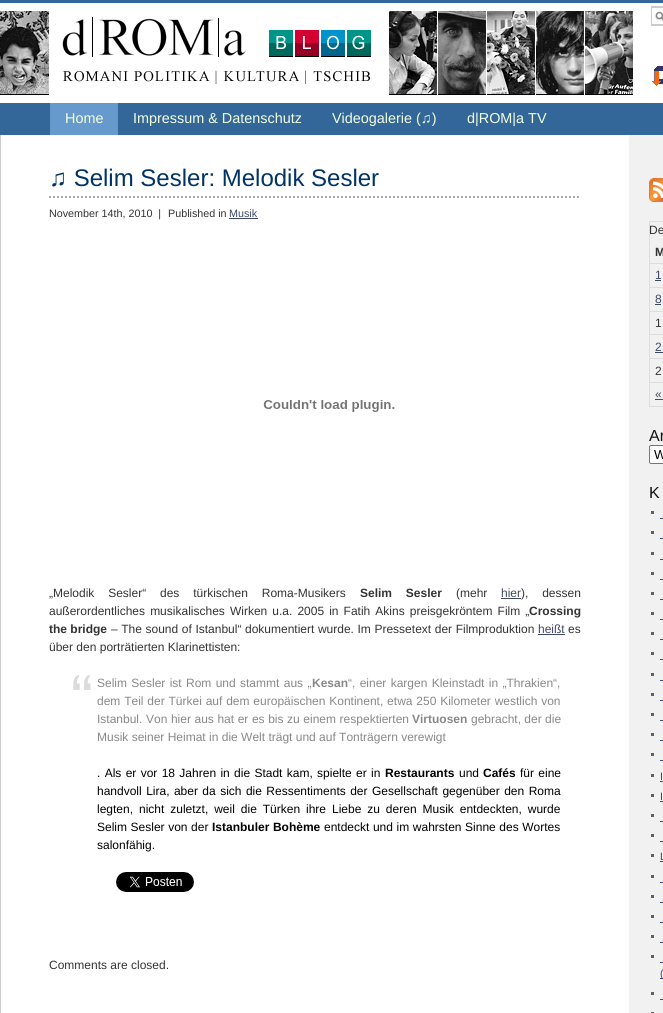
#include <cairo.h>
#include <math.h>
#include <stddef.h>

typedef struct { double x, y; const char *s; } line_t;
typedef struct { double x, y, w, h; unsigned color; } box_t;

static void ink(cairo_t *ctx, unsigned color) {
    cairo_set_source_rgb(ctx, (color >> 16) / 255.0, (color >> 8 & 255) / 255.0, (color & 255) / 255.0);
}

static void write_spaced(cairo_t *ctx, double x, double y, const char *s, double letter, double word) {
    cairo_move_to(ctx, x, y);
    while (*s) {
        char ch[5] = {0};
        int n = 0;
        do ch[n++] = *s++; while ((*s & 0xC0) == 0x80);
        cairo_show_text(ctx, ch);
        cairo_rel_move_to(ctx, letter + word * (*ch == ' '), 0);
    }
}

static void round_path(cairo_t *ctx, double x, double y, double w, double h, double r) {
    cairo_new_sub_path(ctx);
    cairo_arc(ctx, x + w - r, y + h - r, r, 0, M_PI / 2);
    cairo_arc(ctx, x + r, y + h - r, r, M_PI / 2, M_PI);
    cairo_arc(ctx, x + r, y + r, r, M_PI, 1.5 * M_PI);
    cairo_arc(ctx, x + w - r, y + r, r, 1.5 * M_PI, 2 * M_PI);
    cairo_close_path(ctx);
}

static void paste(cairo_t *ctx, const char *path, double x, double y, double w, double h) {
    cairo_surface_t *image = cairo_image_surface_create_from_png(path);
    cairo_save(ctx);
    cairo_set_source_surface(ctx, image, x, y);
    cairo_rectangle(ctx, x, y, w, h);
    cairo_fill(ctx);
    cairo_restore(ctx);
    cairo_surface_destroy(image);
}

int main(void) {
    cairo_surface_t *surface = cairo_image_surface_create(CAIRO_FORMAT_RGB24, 663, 1013);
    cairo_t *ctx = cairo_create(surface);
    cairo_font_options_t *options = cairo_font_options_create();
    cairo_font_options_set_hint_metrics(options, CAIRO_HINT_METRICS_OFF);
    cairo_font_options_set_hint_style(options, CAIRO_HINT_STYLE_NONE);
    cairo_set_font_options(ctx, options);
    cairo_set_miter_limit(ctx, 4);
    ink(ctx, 0xFFFFFF);
    cairo_paint(ctx);
    ink(ctx, 0x336699);
    cairo_rectangle(ctx, 0, 0, 663, 3);
    cairo_fill(ctx);
    paste(ctx, "media/1.png", 0, 11, 663, 84);
    ink(ctx, 0xCCCCCC);
    cairo_rectangle(ctx, 651, 6, 12, 20);
    cairo_fill(ctx);
    paste(ctx, "media/2.png", 652, 8, 11, 16);
    ink(ctx, 0x336699);
    cairo_rectangle(ctx, 0, 103, 663, 32);
    cairo_fill(ctx);
    ink(ctx, 0x6699CC);
    cairo_rectangle(ctx, 50, 103, 68, 32);
    cairo_fill(ctx);
    cairo_select_font_face(ctx, "Liberation Sans", CAIRO_FONT_SLANT_NORMAL, CAIRO_FONT_WEIGHT_NORMAL);
    cairo_set_font_size(ctx, 14.4);
    ink(ctx, 0xF2FFDF);
    {
        static const line_t items[] = {
            {65, 123, "Home"},
            {133, 123, "Impressum & Datenschutz"},
            {332, 123, "Videogalerie (♫)"},
            {467, 123, "d|ROM|a TV"},
        };
        for (size_t i = 0; i < sizeof items / sizeof *items; i++) {
            cairo_move_to(ctx, items[i].x, items[i].y);
            cairo_show_text(ctx, items[i].s);
        }
    }
    ink(ctx, 0xF1F1F1);
    cairo_rectangle(ctx, 629, 135, 34, 878);
    cairo_fill(ctx);
    ink(ctx, 0xCCCCCC);
    cairo_rectangle(ctx, 0, 135, 1, 878);
    cairo_fill(ctx);
    cairo_new_path(ctx);
    cairo_move_to(ctx, 49, 197);
    cairo_line_to(ctx, 581, 197);
    ink(ctx, 0xAAAAAA);
    cairo_set_dash(ctx, (double[]){2, 2}, 2, 0);
    cairo_stroke(ctx);
    cairo_set_font_size(ctx, 24);
    ink(ctx, 0x003366);
    cairo_move_to(ctx, 49, 186);
    cairo_show_text(ctx, "♫ Selim Sesler: Melodik Sesler");
    cairo_set_font_size(ctx, 10.75);
    ink(ctx, 0x333333);
    cairo_move_to(ctx, 49, 217);
    cairo_show_text(ctx, "November 14th, 2010  |");
    cairo_move_to(ctx, 168, 217);
    cairo_show_text(ctx, "Published in");
    ink(ctx, 0x3E4967);
    cairo_move_to(ctx, 229, 217);
    cairo_show_text(ctx, "Musik");
    cairo_rectangle(ctx, 229, 218, 29, 1);
    cairo_fill(ctx);
    paste(ctx, "media/3.png", 263, 400, 132, 12);
    cairo_set_font_size(ctx, 12);
    ink(ctx, 0x333333);
    write_spaced(ctx, 49, 597, "„Melodik Sesler“ des türkischen Roma-Musikers", 0, 10.5);
    cairo_select_font_face(ctx, "Liberation Sans", CAIRO_FONT_SLANT_NORMAL, CAIRO_FONT_WEIGHT_BOLD);
    write_spaced(ctx, 360, 597, "Selim Sesler", 0, 10.5);
    cairo_select_font_face(ctx, "Liberation Sans", CAIRO_FONT_SLANT_NORMAL, CAIRO_FONT_WEIGHT_NORMAL);
    cairo_move_to(ctx, 456, 597);
    cairo_show_text(ctx, "(mehr");
    ink(ctx, 0x3E4967);
    cairo_move_to(ctx, 501, 597);
    cairo_show_text(ctx, "hier");
    cairo_rectangle(ctx, 501, 598, 20, 1);
    cairo_fill(ctx);
    ink(ctx, 0x333333);
    write_spaced(ctx, 521, 597, "), dessen", 0, 10.5);
    write_spaced(ctx, 49, 615, "außerordentliches musikalisches Wirken u.a. 2005 in Fatih Akins preisgekröntem Film „", 0, 1.75);
    cairo_select_font_face(ctx, "Liberation Sans", CAIRO_FONT_SLANT_NORMAL, CAIRO_FONT_WEIGHT_BOLD);
    cairo_move_to(ctx, 529, 615);
    cairo_show_text(ctx, "Crossing");
    cairo_move_to(ctx, 49, 633);
    cairo_show_text(ctx, "the bridge");
    cairo_select_font_face(ctx, "Liberation Sans", CAIRO_FONT_SLANT_NORMAL, CAIRO_FONT_WEIGHT_NORMAL);
    write_spaced(ctx, 111, 633, "– The sound of Istanbul“ dokumentiert wurde. Im Pressetext der Filmproduktion", 0, 0.25);
    ink(ctx, 0x3E4967);
    cairo_move_to(ctx, 538, 633);
    cairo_show_text(ctx, "heißt");
    cairo_rectangle(ctx, 538, 634, 27, 1);
    cairo_fill(ctx);
    ink(ctx, 0x333333);
    cairo_move_to(ctx, 568, 633);
    cairo_show_text(ctx, "es");
    cairo_move_to(ctx, 49, 651);
    cairo_show_text(ctx, "über den porträtierten Klarinettisten:");
    paste(ctx, "media/4.png", 73, 675, 18, 15);
    ink(ctx, 0x888888);
    write_spaced(ctx, 97, 687, "Selim Sesler ist Rom und stammt aus „", 0, 1);
    cairo_select_font_face(ctx, "Liberation Sans", CAIRO_FONT_SLANT_NORMAL, CAIRO_FONT_WEIGHT_BOLD);
    cairo_move_to(ctx, 312, 687);
    cairo_show_text(ctx, "Kesan");
    cairo_select_font_face(ctx, "Liberation Sans", CAIRO_FONT_SLANT_NORMAL, CAIRO_FONT_WEIGHT_NORMAL);
    write_spaced(ctx, 348, 687, "“, einer kargen Kleinstadt in „Thrakien“,", 0, 1);
    write_spaced(ctx, 97, 705, "dem Teil der Türkei auf dem europäischen Kontinent, etwa 250 Kilometer westlich von", 0, 0.5);
    write_spaced(ctx, 97, 723, "Istanbul. Von hier aus hat er es bis zu einem respektierten", 0, 0.25);
    cairo_select_font_face(ctx, "Liberation Sans", CAIRO_FONT_SLANT_NORMAL, CAIRO_FONT_WEIGHT_BOLD);
    cairo_move_to(ctx, 412, 723);
    cairo_show_text(ctx, "Virtuosen");
    cairo_select_font_face(ctx, "Liberation Sans", CAIRO_FONT_SLANT_NORMAL, CAIRO_FONT_WEIGHT_NORMAL);
    cairo_move_to(ctx, 471, 723);
    cairo_show_text(ctx, "gebracht, der die");
    cairo_move_to(ctx, 97, 741);
    cairo_show_text(ctx, "Musik seiner Heimat in die Welt trägt und auf Tonträgern verewigt");
    ink(ctx, 0x000000);
    write_spaced(ctx, 97, 777, ". Als er vor 18 Jahren in die Stadt kam, spielte er in", 0, 1);
    cairo_select_font_face(ctx, "Liberation Sans", CAIRO_FONT_SLANT_NORMAL, CAIRO_FONT_WEIGHT_BOLD);
    cairo_move_to(ctx, 385, 777);
    cairo_show_text(ctx, "Restaurants");
    cairo_select_font_face(ctx, "Liberation Sans", CAIRO_FONT_SLANT_NORMAL, CAIRO_FONT_WEIGHT_NORMAL);
    cairo_move_to(ctx, 459, 777);
    cairo_show_text(ctx, "und");
    cairo_select_font_face(ctx, "Liberation Sans", CAIRO_FONT_SLANT_NORMAL, CAIRO_FONT_WEIGHT_BOLD);
    cairo_move_to(ctx, 483, 777);
    cairo_show_text(ctx, "Cafés");
    cairo_select_font_face(ctx, "Liberation Sans", CAIRO_FONT_SLANT_NORMAL, CAIRO_FONT_WEIGHT_NORMAL);
    write_spaced(ctx, 520, 777, "für eine", 0, 1);
    write_spaced(ctx, 97, 795, "handvoll Lira, aber da sich die Ressentiments der Gesellschaft gegenüber den Roma", 0, 1.1);
    write_spaced(ctx, 97, 813, "legten, nicht zuletzt, weil die Türken ihre Liebe zu deren Musik entdeckten, wurde", 0, 2.6);
    write_spaced(ctx, 97, 831, "Selim Sesler von der", 0, 0.25);
    cairo_select_font_face(ctx, "Liberation Sans", CAIRO_FONT_SLANT_NORMAL, CAIRO_FONT_WEIGHT_BOLD);
    write_spaced(ctx, 212, 831, "Istanbuler Bohème", 0, 0.25);
    cairo_select_font_face(ctx, "Liberation Sans", CAIRO_FONT_SLANT_NORMAL, CAIRO_FONT_WEIGHT_NORMAL);
    write_spaced(ctx, 324, 831, "entdeckt und im wahrsten Sinne des Wortes", 0, 0.25);
    cairo_move_to(ctx, 97, 849);
    cairo_show_text(ctx, "salonfähig.");
    paste(ctx, "media/5.png", 116, 872, 78, 20);
    ink(ctx, 0x333333);
    cairo_move_to(ctx, 49, 969);
    cairo_show_text(ctx, "Comments are closed.");
    paste(ctx, "media/6.png", 649, 178, 14, 24);
    ink(ctx, 0xDDDDDD);
    cairo_rectangle(ctx, 649, 221, 14, 1);
    cairo_fill(ctx);
    cairo_rectangle(ctx, 649, 221, 1, 186);
    cairo_fill(ctx);
    ink(ctx, 0x333333);
    cairo_move_to(ctx, 649, 234);
    cairo_show_text(ctx, "De");
    ink(ctx, 0xDDDDDD);
    cairo_rectangle(ctx, 650, 263, 13, 1);
    cairo_fill(ctx);
    cairo_select_font_face(ctx, "Liberation Sans", CAIRO_FONT_SLANT_NORMAL, CAIRO_FONT_WEIGHT_BOLD);
    ink(ctx, 0x333333);
    cairo_move_to(ctx, 655, 256);
    cairo_show_text(ctx, "M");
    ink(ctx, 0xDDDDDD);
    cairo_rectangle(ctx, 650, 287, 13, 1);
    cairo_fill(ctx);
    cairo_select_font_face(ctx, "Liberation Sans", CAIRO_FONT_SLANT_NORMAL, CAIRO_FONT_WEIGHT_NORMAL);
    ink(ctx, 0x3E4967);
    cairo_move_to(ctx, 655, 279);
    cairo_show_text(ctx, "1");
    cairo_rectangle(ctx, 655, 280, 6, 1);
    cairo_fill(ctx);
    ink(ctx, 0xDDDDDD);
    cairo_rectangle(ctx, 650, 311, 13, 1);
    cairo_fill(ctx);
    ink(ctx, 0x3E4967);
    cairo_move_to(ctx, 655, 303);
    cairo_show_text(ctx, "8");
    cairo_rectangle(ctx, 655, 304, 6, 1);
    cairo_fill(ctx);
    ink(ctx, 0xDDDDDD);
    cairo_rectangle(ctx, 650, 334, 13, 1);
    cairo_fill(ctx);
    ink(ctx, 0x333333);
    cairo_move_to(ctx, 655, 327);
    cairo_show_text(ctx, "1");
    ink(ctx, 0xDDDDDD);
    cairo_rectangle(ctx, 650, 358, 13, 1);
    cairo_fill(ctx);
    ink(ctx, 0x3E4967);
    cairo_move_to(ctx, 655, 351);
    cairo_show_text(ctx, "2");
    cairo_rectangle(ctx, 655, 352, 8, 1);
    cairo_fill(ctx);
    ink(ctx, 0xDDDDDD);
    cairo_rectangle(ctx, 650, 382, 13, 1);
    cairo_fill(ctx);
    ink(ctx, 0x333333);
    cairo_move_to(ctx, 655, 375);
    cairo_show_text(ctx, "2");
    ink(ctx, 0xDDDDDD);
    cairo_rectangle(ctx, 650, 406, 13, 1);
    cairo_fill(ctx);
    ink(ctx, 0x3E4967);
    cairo_move_to(ctx, 655, 398);
    cairo_show_text(ctx, "«");
    cairo_rectangle(ctx, 655, 399, 8, 1);
    cairo_fill(ctx);
    cairo_set_font_size(ctx, 16);
    ink(ctx, 0x111111);
    cairo_move_to(ctx, 649, 441);
    cairo_show_text(ctx, "Ar");
    ink(ctx, 0xFFFFFF);
    round_path(ctx, 649.5, 445.5, 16, 18, 1.5);
    cairo_fill_preserve(ctx);
    ink(ctx, 0x767676);
    cairo_set_line_width(ctx, 1);
    cairo_set_dash(ctx, NULL, 0, 0);
    cairo_stroke(ctx);
    cairo_set_font_size(ctx, 13);
    ink(ctx, 0x000000);
    cairo_move_to(ctx, 654, 459);
    cairo_show_text(ctx, "W");
    cairo_set_font_size(ctx, 16);
    ink(ctx, 0x111111);
    cairo_move_to(ctx, 649, 498);
    cairo_show_text(ctx, "K");
    {
        static const box_t items[] = {
            {651, 511, 3, 3, 0x616161},
            {660, 518, 3, 1, 0x3E4967},
            {651, 531, 3, 3, 0x616161},
            {660, 538, 3, 1, 0x3E4967},
            {651, 552, 3, 3, 0x616161},
            {660, 559, 3, 1, 0x3E4967},
            {651, 572, 3, 3, 0x616161},
            {660, 579, 3, 1, 0x3E4967},
            {651, 592, 3, 3, 0x616161},
            {660, 599, 3, 1, 0x3E4967},
            {651, 612, 3, 3, 0x616161},
            {660, 619, 3, 1, 0x3E4967},
            {651, 632, 3, 3, 0x616161},
            {660, 639, 3, 1, 0x3E4967},
            {651, 652, 3, 3, 0x616161},
            {660, 659, 3, 1, 0x3E4967},
            {651, 673, 3, 3, 0x616161},
            {660, 680, 3, 1, 0x3E4967},
            {651, 693, 3, 3, 0x616161},
            {660, 700, 3, 1, 0x3E4967},
            {651, 713, 3, 3, 0x616161},
            {660, 720, 3, 1, 0x3E4967},
            {651, 733, 3, 3, 0x616161},
            {660, 740, 3, 1, 0x3E4967},
            {651, 753, 3, 3, 0x616161},
            {660, 760, 3, 1, 0x3E4967},
            {651, 774, 3, 3, 0x616161},
        };
        for (size_t i = 0; i < sizeof items / sizeof *items; i++) {
            ink(ctx, items[i].color);
            cairo_rectangle(ctx, items[i].x, items[i].y, items[i].w, items[i].h);
            cairo_fill(ctx);
        }
    }
    cairo_set_font_size(ctx, 10.75);
    ink(ctx, 0x3E4967);
    cairo_move_to(ctx, 660, 780);
    cairo_show_text(ctx, "I");
    cairo_rectangle(ctx, 660, 781, 3, 1);
    cairo_fill(ctx);
    ink(ctx, 0x616161);
    cairo_rectangle(ctx, 651, 794, 3, 3);
    cairo_fill(ctx);
    ink(ctx, 0x3E4967);
    cairo_move_to(ctx, 660, 800);
    cairo_show_text(ctx, "I");
    {
        static const box_t items[] = {
            {660, 801, 3, 1, 0x3E4967},
            {651, 814, 3, 3, 0x616161},
            {660, 821, 3, 1, 0x3E4967},
            {651, 834, 3, 3, 0x616161},
            {660, 841, 3, 1, 0x3E4967},
            {651, 854, 3, 3, 0x616161},
        };
        for (size_t i = 0; i < sizeof items / sizeof *items; i++) {
            ink(ctx, items[i].color);
            cairo_rectangle(ctx, items[i].x, items[i].y, items[i].w, items[i].h);
            cairo_fill(ctx);
        }
    }
    ink(ctx, 0x3E4967);
    cairo_move_to(ctx, 660, 860);
    cairo_show_text(ctx, "L");
    {
        static const box_t items[] = {
            {660, 861, 3, 1, 0x3E4967},
            {651, 875, 3, 3, 0x616161},
            {660, 882, 3, 1, 0x3E4967},
            {651, 895, 3, 3, 0x616161},
            {660, 902, 3, 1, 0x3E4967},
            {651, 915, 3, 3, 0x616161},
            {660, 922, 3, 1, 0x3E4967},
            {651, 935, 3, 3, 0x616161},
            {660, 942, 3, 1, 0x3E4967},
            {651, 955, 3, 3, 0x616161},
            {660, 978, 3, 1, 0x3E4967},
        };
        for (size_t i = 0; i < sizeof items / sizeof *items; i++) {
            ink(ctx, items[i].color);
            cairo_rectangle(ctx, items[i].x, items[i].y, items[i].w, items[i].h);
            cairo_fill(ctx);
        }
    }
    cairo_move_to(ctx, 660, 977);
    cairo_show_text(ctx, "(");
    {
        static const box_t items[] = {
            {660, 962, 3, 1, 0x3E4967},
            {651, 992, 3, 3, 0x616161},
            {660, 999, 3, 1, 0x3E4967},
            {651, 1012, 3, 1, 0x616161},
        };
        for (size_t i = 0; i < sizeof items / sizeof *items; i++) {
            ink(ctx, items[i].color);
            cairo_rectangle(ctx, items[i].x, items[i].y, items[i].w, items[i].h);
            cairo_fill(ctx);
        }
    }
    cairo_surface_write_to_png(surface, "image.png");
    cairo_font_options_destroy(options);
    cairo_destroy(ctx);
    cairo_surface_destroy(surface);
    return 0;
}
